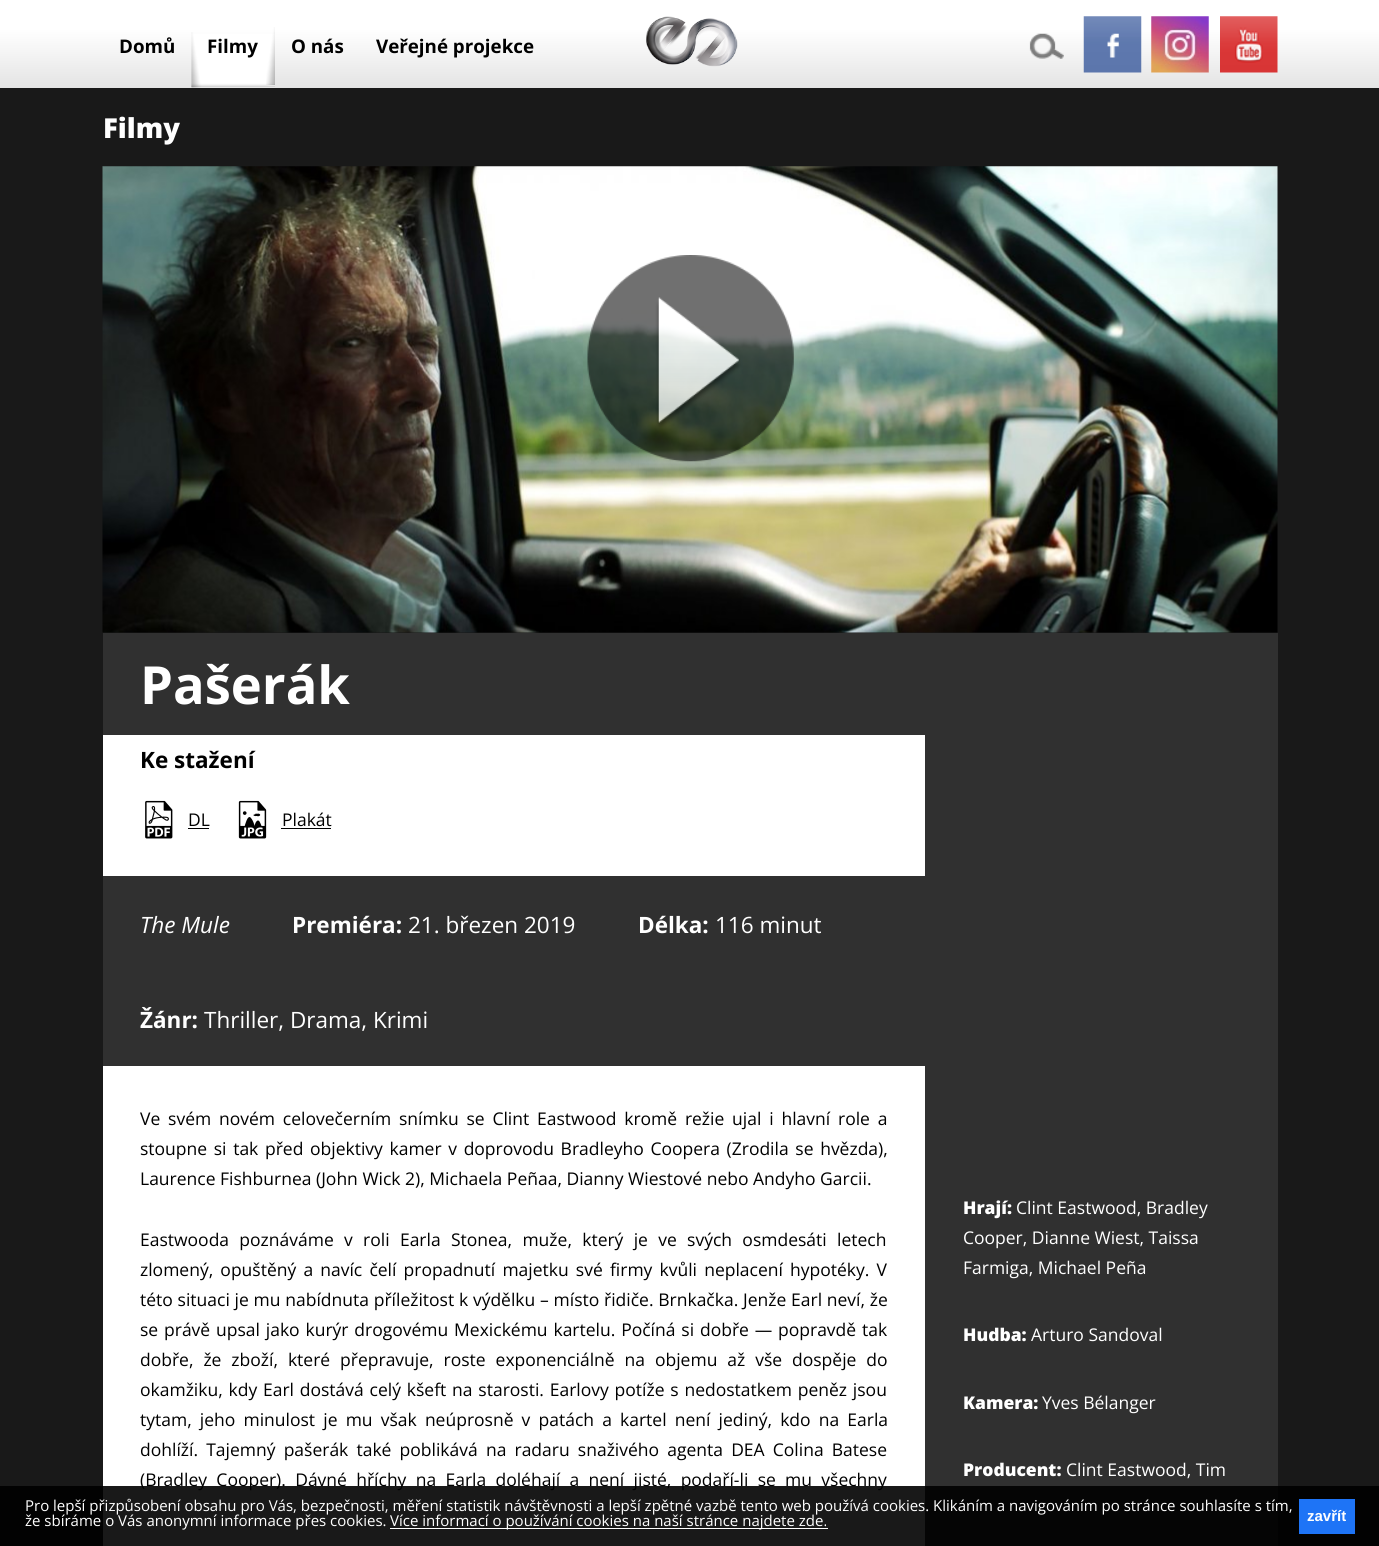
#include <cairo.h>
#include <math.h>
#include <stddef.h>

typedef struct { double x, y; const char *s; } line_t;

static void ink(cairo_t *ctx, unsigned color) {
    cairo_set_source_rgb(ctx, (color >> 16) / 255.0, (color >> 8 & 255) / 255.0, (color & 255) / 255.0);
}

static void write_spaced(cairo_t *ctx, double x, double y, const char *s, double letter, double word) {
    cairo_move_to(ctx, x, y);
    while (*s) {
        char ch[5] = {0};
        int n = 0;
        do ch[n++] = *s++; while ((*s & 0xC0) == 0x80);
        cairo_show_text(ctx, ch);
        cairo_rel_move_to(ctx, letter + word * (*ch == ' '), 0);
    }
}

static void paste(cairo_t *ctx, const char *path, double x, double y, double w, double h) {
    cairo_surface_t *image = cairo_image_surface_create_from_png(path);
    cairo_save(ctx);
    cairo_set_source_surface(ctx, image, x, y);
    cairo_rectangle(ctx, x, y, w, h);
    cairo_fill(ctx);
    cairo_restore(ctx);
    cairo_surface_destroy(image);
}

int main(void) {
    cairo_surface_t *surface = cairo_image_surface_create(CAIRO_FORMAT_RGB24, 1379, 1546);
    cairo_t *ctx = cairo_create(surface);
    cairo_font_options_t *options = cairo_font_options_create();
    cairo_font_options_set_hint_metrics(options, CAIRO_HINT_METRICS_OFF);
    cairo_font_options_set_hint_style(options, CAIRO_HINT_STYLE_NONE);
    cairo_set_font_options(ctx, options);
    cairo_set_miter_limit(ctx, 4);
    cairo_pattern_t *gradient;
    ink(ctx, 0x191919);
    cairo_paint(ctx);
    gradient = cairo_pattern_create_linear(690, 0, 690, 88);
    cairo_pattern_add_color_stop_rgba(gradient, 0.33, 1, 1, 1, 1);
    cairo_pattern_add_color_stop_rgba(gradient, 1, 0.894, 0.894, 0.894, 1);
    cairo_set_source(ctx, gradient);
    cairo_pattern_destroy(gradient);
    cairo_rectangle(ctx, 0, 0, 1379, 88);
    cairo_fill(ctx);
    cairo_select_font_face(ctx, "Open Sans", CAIRO_FONT_SLANT_NORMAL, CAIRO_FONT_WEIGHT_BOLD);
    cairo_set_font_size(ctx, 18.75);
    ink(ctx, 0x000000);
    cairo_move_to(ctx, 119, 53);
    cairo_show_text(ctx, "Domů");
    ink(ctx, 0xFFFFFF);
    cairo_rectangle(ctx, 191, 34, 84, 54);
    cairo_fill(ctx);
    paste(ctx, "media/1.png", 191, 32, 84, 56);
    paste(ctx, "media/2.png", 266, 27, 9, 58);
    ink(ctx, 0x000000);
    {
        static const line_t items[] = {
            {207, 53, "Filmy"},
            {291, 53, "O nás"},
            {376, 53, "Veřejné projekce"},
        };
        for (size_t i = 0; i < sizeof items / sizeof *items; i++) {
            cairo_move_to(ctx, items[i].x, items[i].y);
            cairo_show_text(ctx, items[i].s);
        }
    }
    paste(ctx, "media/3.png", 1029, 33, 35, 26);
    paste(ctx, "media/4.png", 1083, 16, 59, 57);
    paste(ctx, "media/5.png", 1151, 16, 58, 57);
    paste(ctx, "media/6.png", 1220, 16, 58, 57);
    paste(ctx, "media/7.png", 646, 16, 92, 51);
    cairo_select_font_face(ctx, "Open Sans ExtraBold", CAIRO_FONT_SLANT_NORMAL, CAIRO_FONT_WEIGHT_NORMAL);
    cairo_set_font_size(ctx, 27.5);
    ink(ctx, 0xFFFFFF);
    cairo_move_to(ctx, 103, 138);
    cairo_show_text(ctx, "Filmy");
    paste(ctx, "media/8.png", 102, 166, 1176, 467);
    paste(ctx, "media/9.png", 587, 255, 207, 207);
    ink(ctx, 0x303030);
    cairo_rectangle(ctx, 103, 633, 1175, 102);
    cairo_fill(ctx);
    cairo_select_font_face(ctx, "Open Sans", CAIRO_FONT_SLANT_NORMAL, CAIRO_FONT_WEIGHT_BOLD);
    cairo_set_font_size(ctx, 52.5);
    ink(ctx, 0xFFFFFF);
    cairo_move_to(ctx, 140, 704);
    cairo_show_text(ctx, "Pašerák");
    ink(ctx, 0x303030);
    cairo_rectangle(ctx, 925, 735, 353, 811);
    cairo_fill(ctx);
    ink(ctx, 0xFFFFFF);
    cairo_rectangle(ctx, 103, 735, 822, 141);
    cairo_fill(ctx);
    cairo_set_font_size(ctx, 22.5);
    ink(ctx, 0x000000);
    cairo_move_to(ctx, 140, 768);
    cairo_show_text(ctx, "Ke stažení");
    paste(ctx, "media/10.png", 145, 800, 28, 39);
    cairo_select_font_face(ctx, "Open Sans", CAIRO_FONT_SLANT_NORMAL, CAIRO_FONT_WEIGHT_NORMAL);
    cairo_set_font_size(ctx, 17.5);
    cairo_move_to(ctx, 188, 826);
    cairo_show_text(ctx, "DL");
    cairo_rectangle(ctx, 188, 828, 21, 1);
    cairo_fill(ctx);
    paste(ctx, "media/11.png", 238, 800, 29, 39);
    cairo_move_to(ctx, 282, 826);
    cairo_show_text(ctx, "Plakát");
    cairo_rectangle(ctx, 281, 828, 50, 1);
    cairo_fill(ctx);
    ink(ctx, 0x303030);
    cairo_rectangle(ctx, 103, 876, 822, 190);
    cairo_fill(ctx);
    cairo_select_font_face(ctx, "Open Sans", CAIRO_FONT_SLANT_ITALIC, CAIRO_FONT_WEIGHT_NORMAL);
    cairo_set_font_size(ctx, 22.5);
    ink(ctx, 0xFFFFFF);
    cairo_move_to(ctx, 140, 933);
    cairo_show_text(ctx, "The Mule");
    cairo_select_font_face(ctx, "Open Sans", CAIRO_FONT_SLANT_NORMAL, CAIRO_FONT_WEIGHT_BOLD);
    cairo_move_to(ctx, 292, 933);
    cairo_show_text(ctx, "Premiéra:");
    cairo_select_font_face(ctx, "Open Sans", CAIRO_FONT_SLANT_NORMAL, CAIRO_FONT_WEIGHT_NORMAL);
    cairo_move_to(ctx, 408, 933);
    cairo_show_text(ctx, "21. březen 2019");
    cairo_select_font_face(ctx, "Open Sans", CAIRO_FONT_SLANT_NORMAL, CAIRO_FONT_WEIGHT_BOLD);
    cairo_move_to(ctx, 638, 933);
    cairo_show_text(ctx, "Délka:");
    cairo_select_font_face(ctx, "Open Sans", CAIRO_FONT_SLANT_NORMAL, CAIRO_FONT_WEIGHT_NORMAL);
    cairo_move_to(ctx, 715, 933);
    cairo_show_text(ctx, "116 minut");
    cairo_select_font_face(ctx, "Open Sans", CAIRO_FONT_SLANT_NORMAL, CAIRO_FONT_WEIGHT_BOLD);
    cairo_move_to(ctx, 140, 1028);
    cairo_show_text(ctx, "Žánr:");
    cairo_select_font_face(ctx, "Open Sans", CAIRO_FONT_SLANT_NORMAL, CAIRO_FONT_WEIGHT_NORMAL);
    cairo_move_to(ctx, 204, 1028);
    cairo_show_text(ctx, "Thriller, Drama, Krimi");
    cairo_rectangle(ctx, 103, 1066, 822, 480);
    cairo_fill(ctx);
    cairo_set_font_size(ctx, 17.5);
    ink(ctx, 0x000000);
    write_spaced(ctx, 140, 1125, "Ve svém novém celovečerním snímku se Clint Eastwood kromě režie ujal i hlavní role a", 0, 3.25);
    write_spaced(ctx, 140, 1155, "stoupne si tak před objektivy kamer v doprovodu Bradleyho Coopera (Zrodila se hvězda),", 0, 2.1);
    cairo_move_to(ctx, 140, 1185);
    cairo_show_text(ctx, "Laurence Fishburnea (John Wick 2), Michaela Peñaa, Dianny Wiestové nebo Andyho Garcii.");
    write_spaced(ctx, 140, 1246, "Eastwooda poznáváme v roli Earla Stonea, muže, který je ve svých osmdesáti letech", 0, 5.75);
    write_spaced(ctx, 140, 1276, "zlomený, opuštěný a navíc čelí propadnutí majetku své firmy kvůli neplacení hypotéky. V", 0, 2.6);
    write_spaced(ctx, 140, 1306, "této situaci je mu nabídnuta příležitost k výdělku – místo řidiče. Brnkačka. Jenže Earl neví, že", 0, 0.2);
    write_spaced(ctx, 140, 1336, "se právě upsal jako kurýr drogovému Mexickému kartelu. Počíná si dobře — popravdě tak", 0, 1.3);
    write_spaced(ctx, 140, 1366, "dobře, že zboží, které přepravuje, roste exponenciálně na objemu až vše dospěje do", 0, 5.4);
    write_spaced(ctx, 140, 1396, "okamžiku, kdy Earl dostává celý kšeft na starosti. Earlovy potíže s nedostatkem peněz jsou", 0, 1.25);
    write_spaced(ctx, 140, 1426, "tytam, jeho minulost je mu však neúprosně v patách a kartel není jediný, kdo na Earla", 0, 3.6);
    write_spaced(ctx, 140, 1456, "dohlíží. Tajemný pašerák také poblikává na radaru snaživého agenta DEA Colina Batese", 0, 3.6);
    write_spaced(ctx, 140, 1486, "(Bradley Cooper). Dávné hříchy na Earla doléhají a není jisté, podaří-li se mu všechny", 0, 4.75);
    cairo_select_font_face(ctx, "Open Sans ExtraBold", CAIRO_FONT_SLANT_NORMAL, CAIRO_FONT_WEIGHT_NORMAL);
    ink(ctx, 0xFFFFFF);
    cairo_move_to(ctx, 963, 1214);
    cairo_show_text(ctx, "Hrají:");
    cairo_select_font_face(ctx, "Open Sans", CAIRO_FONT_SLANT_NORMAL, CAIRO_FONT_WEIGHT_NORMAL);
    {
        static const line_t items[] = {
            {1016, 1214, "Clint Eastwood, Bradley"},
            {963, 1244, "Cooper, Dianne Wiest, Taissa"},
            {963, 1274, "Farmiga, Michael Peña"},
        };
        for (size_t i = 0; i < sizeof items / sizeof *items; i++) {
            cairo_move_to(ctx, items[i].x, items[i].y);
            cairo_show_text(ctx, items[i].s);
        }
    }
    cairo_select_font_face(ctx, "Open Sans ExtraBold", CAIRO_FONT_SLANT_NORMAL, CAIRO_FONT_WEIGHT_NORMAL);
    cairo_move_to(ctx, 963, 1341);
    cairo_show_text(ctx, "Hudba:");
    cairo_select_font_face(ctx, "Open Sans", CAIRO_FONT_SLANT_NORMAL, CAIRO_FONT_WEIGHT_NORMAL);
    cairo_move_to(ctx, 1031, 1341);
    cairo_show_text(ctx, "Arturo Sandoval");
    cairo_select_font_face(ctx, "Open Sans ExtraBold", CAIRO_FONT_SLANT_NORMAL, CAIRO_FONT_WEIGHT_NORMAL);
    cairo_move_to(ctx, 963, 1409);
    cairo_show_text(ctx, "Kamera:");
    cairo_select_font_face(ctx, "Open Sans", CAIRO_FONT_SLANT_NORMAL, CAIRO_FONT_WEIGHT_NORMAL);
    cairo_move_to(ctx, 1042, 1409);
    cairo_show_text(ctx, "Yves Bélanger");
    cairo_select_font_face(ctx, "Open Sans ExtraBold", CAIRO_FONT_SLANT_NORMAL, CAIRO_FONT_WEIGHT_NORMAL);
    cairo_move_to(ctx, 963, 1476);
    cairo_show_text(ctx, "Producent:");
    cairo_select_font_face(ctx, "Open Sans", CAIRO_FONT_SLANT_NORMAL, CAIRO_FONT_WEIGHT_NORMAL);
    cairo_move_to(ctx, 1066, 1476);
    cairo_show_text(ctx, "Clint Eastwood, Tim");
    cairo_set_source_rgba(ctx, 0, 0, 0, 0.9);
    cairo_rectangle(ctx, 0, 1486, 1379, 60);
    cairo_fill(ctx);
    cairo_set_font_size(ctx, 15);
    ink(ctx, 0xFFFFFF);
    cairo_move_to(ctx, 25, 1511);
    cairo_show_text(ctx, "Pro lepší přizpůsobení obsahu pro Vás, bezpečnosti, měření statistik návštěvnosti a lepší zpětné vazbě tento web používá cookies. Klikáním a navigováním po stránce souhlasíte s tím,");
    ink(ctx, 0x1E74F6);
    cairo_rectangle(ctx, 1299, 1499, 56, 35);
    cairo_fill(ctx);
    cairo_select_font_face(ctx, "Liberation Sans", CAIRO_FONT_SLANT_NORMAL, CAIRO_FONT_WEIGHT_BOLD);
    ink(ctx, 0xFFFFFF);
    cairo_move_to(ctx, 1307, 1521);
    cairo_show_text(ctx, "zavřít");
    cairo_select_font_face(ctx, "Open Sans", CAIRO_FONT_SLANT_NORMAL, CAIRO_FONT_WEIGHT_NORMAL);
    cairo_move_to(ctx, 25, 1526);
    cairo_show_text(ctx, "že sbíráme o Vás anonymní informace přes cookies.");
    cairo_rectangle(ctx, 390, 1528, 438, 1);
    cairo_fill(ctx);
    cairo_move_to(ctx, 390, 1526);
    cairo_show_text(ctx, "Více informací o používání cookies na naší stránce najdete zde.");
    cairo_surface_write_to_png(surface, "image.png");
    cairo_font_options_destroy(options);
    cairo_destroy(ctx);
    cairo_surface_destroy(surface);
    return 0;
}
